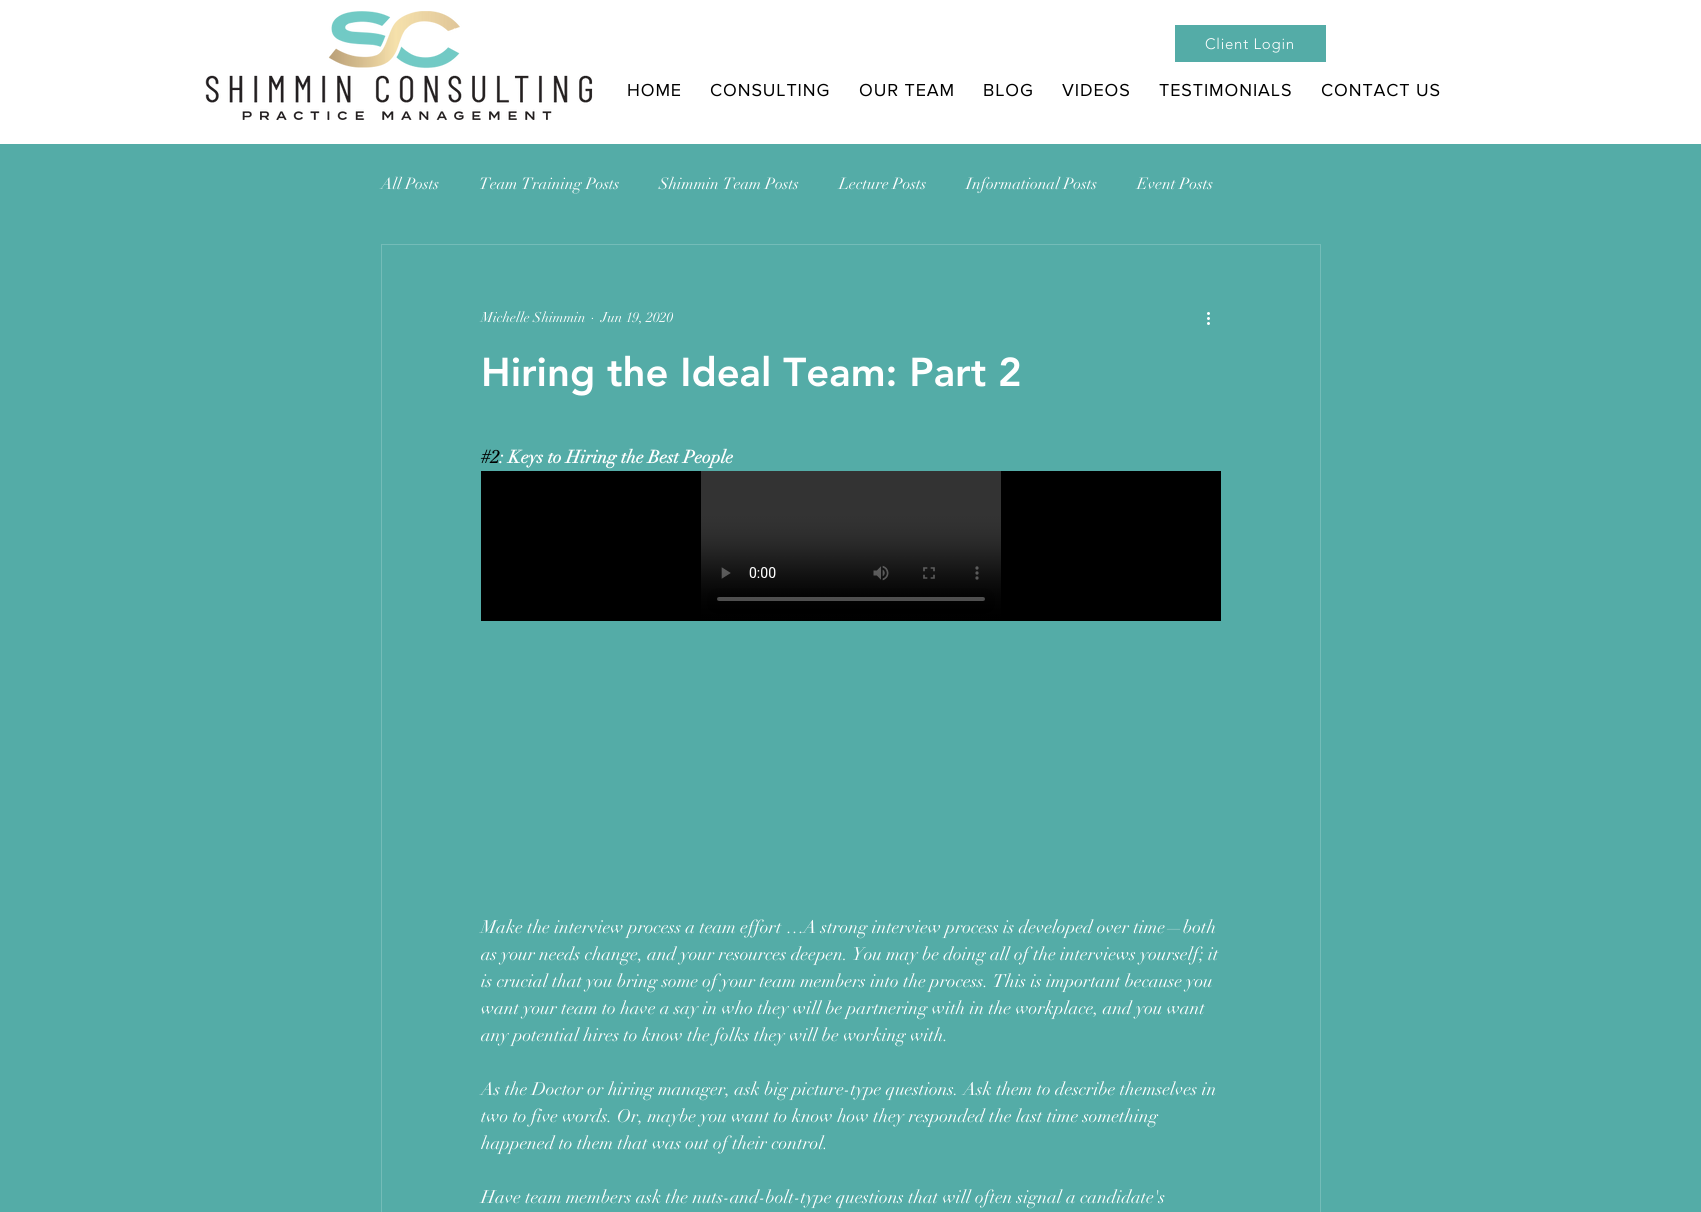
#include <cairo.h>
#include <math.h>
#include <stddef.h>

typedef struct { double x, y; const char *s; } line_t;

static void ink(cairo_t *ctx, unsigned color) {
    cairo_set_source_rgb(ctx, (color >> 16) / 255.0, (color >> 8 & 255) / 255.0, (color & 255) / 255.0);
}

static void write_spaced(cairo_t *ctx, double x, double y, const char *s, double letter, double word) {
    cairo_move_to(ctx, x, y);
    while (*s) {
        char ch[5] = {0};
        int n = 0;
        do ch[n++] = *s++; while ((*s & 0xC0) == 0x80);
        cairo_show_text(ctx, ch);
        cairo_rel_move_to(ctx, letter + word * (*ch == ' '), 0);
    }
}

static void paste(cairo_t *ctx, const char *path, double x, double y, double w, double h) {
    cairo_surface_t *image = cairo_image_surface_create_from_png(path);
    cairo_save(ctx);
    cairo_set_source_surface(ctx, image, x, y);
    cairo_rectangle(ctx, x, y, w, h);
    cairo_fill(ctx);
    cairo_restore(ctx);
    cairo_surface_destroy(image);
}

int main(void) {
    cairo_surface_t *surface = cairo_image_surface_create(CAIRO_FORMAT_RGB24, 1701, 1212);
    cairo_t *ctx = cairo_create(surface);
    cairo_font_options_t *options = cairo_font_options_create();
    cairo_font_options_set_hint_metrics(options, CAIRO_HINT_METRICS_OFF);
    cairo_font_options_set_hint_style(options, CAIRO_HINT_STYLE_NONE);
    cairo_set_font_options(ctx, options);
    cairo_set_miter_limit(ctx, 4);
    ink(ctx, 0x54ACA7);
    cairo_paint(ctx);
    ink(ctx, 0xFFFFFF);
    cairo_rectangle(ctx, 0, 0, 1701, 144);
    cairo_fill(ctx);
    paste(ctx, "media/1.png", 205, 11, 388, 109);
    ink(ctx, 0x54ACA7);
    cairo_rectangle(ctx, 1175, 25, 151, 37);
    cairo_fill(ctx);
    cairo_select_font_face(ctx, "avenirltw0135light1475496 Light", CAIRO_FONT_SLANT_NORMAL, CAIRO_FONT_WEIGHT_NORMAL);
    cairo_set_font_size(ctx, 15);
    ink(ctx, 0xFFFFFF);
    write_spaced(ctx, 1205, 49, "Client Login", 0.75, 0);
    cairo_select_font_face(ctx, "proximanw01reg", CAIRO_FONT_SLANT_NORMAL, CAIRO_FONT_WEIGHT_NORMAL);
    cairo_set_font_size(ctx, 18);
    ink(ctx, 0x000000);
    {
        static const line_t items[] = {
            {627, 96, "HOME"},
            {710, 96, "CONSULTING"},
            {859, 96, "OUR TEAM"},
            {983, 96, "BLOG"},
            {1062, 96, "VIDEOS"},
            {1159, 96, "TESTIMONIALS"},
            {1321, 96, "CONTACT US"},
        };
        for (size_t i = 0; i < sizeof items / sizeof *items; i++) {
            write_spaced(ctx, items[i].x, items[i].y, items[i].s, 0.9, 0);
        }
    }
    cairo_select_font_face(ctx, "didot", CAIRO_FONT_SLANT_NORMAL, CAIRO_FONT_WEIGHT_NORMAL);
    cairo_set_font_size(ctx, 16);
    ink(ctx, 0xFFFFFF);
    {
        static const line_t items[] = {
            {381, 189, "All Posts"},
            {479, 189, "Team Training Posts"},
            {659, 189, "Shimmin Team Posts"},
            {839, 189, "Lecture Posts"},
            {966, 189, "Informational Posts"},
            {1137, 189, "Event Posts"},
        };
        for (size_t i = 0; i < sizeof items / sizeof *items; i++) {
            cairo_move_to(ctx, items[i].x, items[i].y);
            cairo_show_text(ctx, items[i].s);
        }
    }
    cairo_rectangle(ctx, 381.5, 244.5, 939, 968);
    ink(ctx, 0x74BCB8);
    cairo_set_line_width(ctx, 1);
    cairo_stroke(ctx);
    cairo_set_font_size(ctx, 14);
    ink(ctx, 0xFFFFFF);
    {
        static const line_t items[] = {
            {481, 322, "Michelle Shimmin"},
            {591, 322, "·"},
            {601, 322, "Jun 19, 2020"},
        };
        for (size_t i = 0; i < sizeof items / sizeof *items; i++) {
            cairo_move_to(ctx, items[i].x, items[i].y);
            cairo_show_text(ctx, items[i].s);
        }
    }
    paste(ctx, "media/2.png", 1207, 312, 3, 13);
    cairo_select_font_face(ctx, "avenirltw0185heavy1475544 Black", CAIRO_FONT_SLANT_NORMAL, CAIRO_FONT_WEIGHT_NORMAL);
    cairo_set_font_size(ctx, 40);
    cairo_move_to(ctx, 481, 386);
    cairo_show_text(ctx, "Hiring the Ideal Team: Part 2");
    cairo_select_font_face(ctx, "didot", CAIRO_FONT_SLANT_NORMAL, CAIRO_FONT_WEIGHT_BOLD);
    cairo_set_font_size(ctx, 18);
    ink(ctx, 0x000000);
    cairo_move_to(ctx, 481, 463);
    cairo_show_text(ctx, "#2");
    ink(ctx, 0xFFFFFF);
    cairo_move_to(ctx, 499, 463);
    cairo_show_text(ctx, ": Keys to Hiring the Best People");
    paste(ctx, "media/3.png", 481, 471, 740, 150);
    cairo_select_font_face(ctx, "didot", CAIRO_FONT_SLANT_NORMAL, CAIRO_FONT_WEIGHT_NORMAL);
    {
        static const line_t items[] = {
            {481, 933, "Make the interview process a team effort …A strong interview process is developed over time—both"},
            {481, 960, "as your needs change, and your resources deepen. You may be doing all of the interviews yourself; it"},
            {481, 987, "is crucial that you bring some of your team members into the process. This is important because you"},
            {481, 1014, "want your team to have a say in who they will be partnering with in the workplace, and you want"},
            {481, 1041, "any potential hires to know the folks they will be working with."},
            {481, 1095, "As the Doctor or hiring manager, ask big picture-type questions. Ask them to describe themselves in"},
            {481, 1122, "two to five words. Or, maybe you want to know how they responded the last time something"},
            {481, 1149, "happened to them that was out of their control."},
            {481, 1203, "Have team members ask the nuts-and-bolt-type questions that will often signal a candidate's"},
        };
        for (size_t i = 0; i < sizeof items / sizeof *items; i++) {
            cairo_move_to(ctx, items[i].x, items[i].y);
            cairo_show_text(ctx, items[i].s);
        }
    }
    cairo_surface_write_to_png(surface, "image.png");
    cairo_font_options_destroy(options);
    cairo_destroy(ctx);
    cairo_surface_destroy(surface);
    return 0;
}
